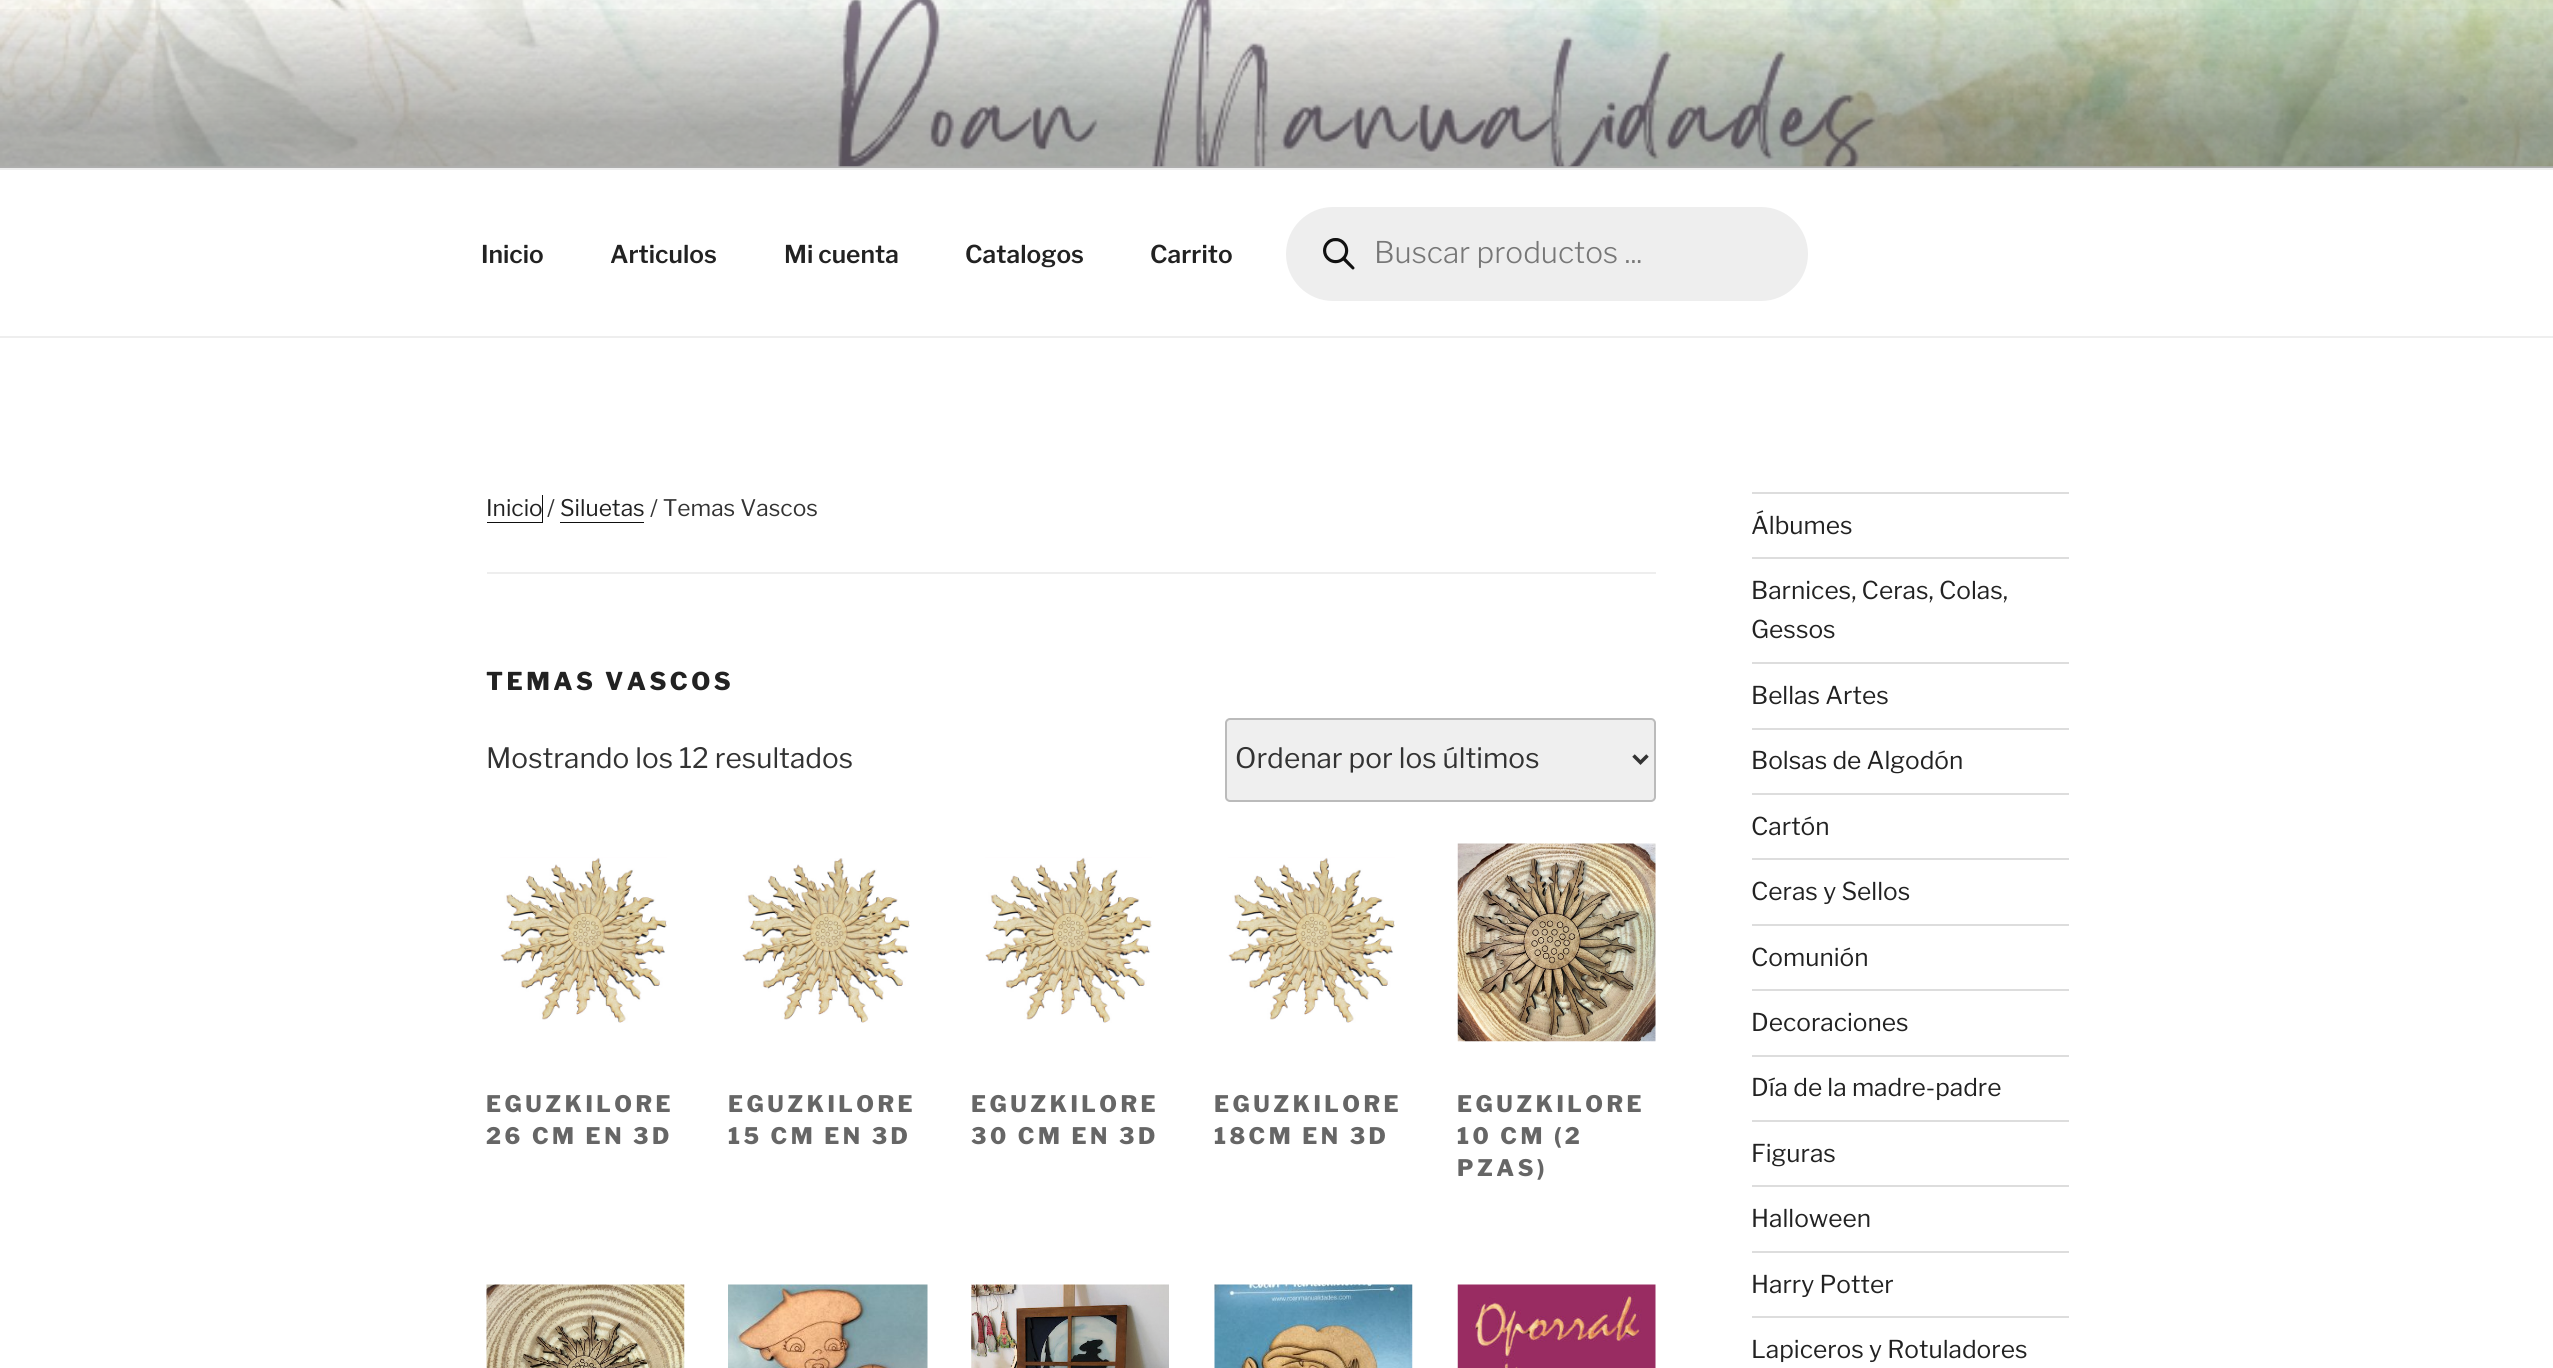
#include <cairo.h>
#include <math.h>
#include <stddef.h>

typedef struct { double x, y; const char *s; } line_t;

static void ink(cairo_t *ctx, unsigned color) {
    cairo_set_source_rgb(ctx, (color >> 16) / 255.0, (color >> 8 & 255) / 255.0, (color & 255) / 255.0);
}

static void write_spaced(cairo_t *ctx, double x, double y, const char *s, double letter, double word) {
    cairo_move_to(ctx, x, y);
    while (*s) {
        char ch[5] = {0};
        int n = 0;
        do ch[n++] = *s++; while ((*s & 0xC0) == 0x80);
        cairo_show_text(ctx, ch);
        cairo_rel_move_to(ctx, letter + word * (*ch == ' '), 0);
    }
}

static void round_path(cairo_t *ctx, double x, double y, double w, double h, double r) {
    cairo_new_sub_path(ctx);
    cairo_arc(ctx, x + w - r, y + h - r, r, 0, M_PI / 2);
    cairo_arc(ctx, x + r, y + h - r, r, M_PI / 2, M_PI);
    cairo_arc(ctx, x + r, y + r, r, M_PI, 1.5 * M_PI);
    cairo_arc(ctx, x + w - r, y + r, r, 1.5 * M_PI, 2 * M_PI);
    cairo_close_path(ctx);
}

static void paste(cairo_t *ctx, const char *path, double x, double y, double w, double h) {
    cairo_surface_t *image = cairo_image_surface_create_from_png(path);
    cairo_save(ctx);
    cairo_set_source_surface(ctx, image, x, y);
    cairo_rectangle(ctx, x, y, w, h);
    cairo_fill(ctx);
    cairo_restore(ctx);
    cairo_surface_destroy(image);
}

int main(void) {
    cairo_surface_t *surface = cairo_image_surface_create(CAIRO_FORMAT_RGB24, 2553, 1368);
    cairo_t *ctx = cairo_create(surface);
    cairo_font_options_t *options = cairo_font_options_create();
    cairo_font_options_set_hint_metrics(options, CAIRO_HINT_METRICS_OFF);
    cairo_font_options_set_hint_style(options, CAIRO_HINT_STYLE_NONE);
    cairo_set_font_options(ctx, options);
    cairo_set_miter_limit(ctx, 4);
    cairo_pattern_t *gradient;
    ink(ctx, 0xFFFFFF);
    cairo_paint(ctx);
    ink(ctx, 0xFAFAFA);
    cairo_rectangle(ctx, 0, 166, 2553, 2);
    cairo_fill(ctx);
    paste(ctx, "media/1.png", 0, 0, 2553, 167);
    gradient = cairo_pattern_create_linear(1277, 0, 1277, 168);
    cairo_pattern_add_color_stop_rgba(gradient, 0, 0, 0, 0, 0);
    cairo_pattern_add_color_stop_rgba(gradient, 0.75, 0, 0, 0, 0.3);
    cairo_pattern_add_color_stop_rgba(gradient, 1, 0, 0, 0, 0.3);
    cairo_set_source(ctx, gradient);
    cairo_pattern_destroy(gradient);
    cairo_rectangle(ctx, 0, 9, 2553, 159);
    cairo_fill(ctx);
    ink(ctx, 0xEEEEEE);
    cairo_rectangle(ctx, 0, 168, 2553, 2);
    cairo_fill(ctx);
    cairo_rectangle(ctx, 0, 336, 2553, 2);
    cairo_fill(ctx);
    cairo_select_font_face(ctx, "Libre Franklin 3 Thin", CAIRO_FONT_SLANT_NORMAL, CAIRO_FONT_WEIGHT_NORMAL);
    cairo_set_font_size(ctx, 24.5);
    ink(ctx, 0x222222);
    {
        static const line_t items[] = {
            {481, 263, "Inicio"},
            {610, 263, "Articulos"},
            {784, 263, "Mi cuenta"},
            {965, 263, "Catalogos"},
            {1150, 263, "Carrito"},
        };
        for (size_t i = 0; i < sizeof items / sizeof *items; i++) {
            cairo_move_to(ctx, items[i].x, items[i].y);
            cairo_show_text(ctx, items[i].s);
        }
    }
    ink(ctx, 0xEEEEEE);
    round_path(ctx, 1286, 207, 522, 94, 47);
    cairo_fill(ctx);
    paste(ctx, "media/2.png", 1323, 238, 32, 32);
    cairo_select_font_face(ctx, "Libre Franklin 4 Thin", CAIRO_FONT_SLANT_NORMAL, CAIRO_FONT_WEIGHT_NORMAL);
    cairo_set_font_size(ctx, 29.75);
    ink(ctx, 0x777777);
    cairo_move_to(ctx, 1374, 263);
    cairo_show_text(ctx, "Buscar productos ...");
    ink(ctx, 0xEEEEEE);
    cairo_rectangle(ctx, 487, 572, 1169, 2);
    cairo_fill(ctx);
    ink(ctx, 0x0F0F0F);
    cairo_new_path(ctx);
    cairo_move_to(ctx, 487, 522);
    cairo_line_to(ctx, 487, 523);
    cairo_line_to(ctx, 543, 523);
    cairo_line_to(ctx, 543, 495);
    cairo_line_to(ctx, 542, 495);
    cairo_line_to(ctx, 542, 522);
    cairo_close_path(ctx);
    cairo_fill(ctx);
    cairo_select_font_face(ctx, "Libre Franklin Thin", CAIRO_FONT_SLANT_NORMAL, CAIRO_FONT_WEIGHT_NORMAL);
    cairo_set_font_size(ctx, 22.75);
    ink(ctx, 0x222222);
    cairo_move_to(ctx, 486, 516);
    cairo_show_text(ctx, "Inicio");
    ink(ctx, 0x333333);
    cairo_move_to(ctx, 547, 516);
    cairo_show_text(ctx, "/");
    ink(ctx, 0x222222);
    cairo_move_to(ctx, 560, 516);
    cairo_show_text(ctx, "Siluetas");
    ink(ctx, 0x0F0F0F);
    cairo_rectangle(ctx, 560, 522, 84, 1);
    cairo_fill(ctx);
    ink(ctx, 0x333333);
    cairo_move_to(ctx, 650, 516);
    cairo_show_text(ctx, "/ Temas Vascos");
    cairo_select_font_face(ctx, "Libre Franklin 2 Thin", CAIRO_FONT_SLANT_NORMAL, CAIRO_FONT_WEIGHT_NORMAL);
    cairo_set_font_size(ctx, 24.5);
    ink(ctx, 0x222222);
    write_spaced(ctx, 486, 690, "TEMAS VASCOS", 3.5, 0);
    cairo_select_font_face(ctx, "Libre Franklin Thin", CAIRO_FONT_SLANT_NORMAL, CAIRO_FONT_WEIGHT_NORMAL);
    cairo_set_font_size(ctx, 28);
    ink(ctx, 0x333333);
    cairo_move_to(ctx, 486, 768);
    cairo_show_text(ctx, "Mostrando los 12 resultados");
    ink(ctx, 0xEFEFEF);
    round_path(ctx, 1226, 719, 429, 82, 4);
    cairo_fill_preserve(ctx);
    ink(ctx, 0xBBBBBB);
    cairo_stroke(ctx);
    cairo_new_path(ctx);
    cairo_move_to(ctx, 1633.5, 755.5);
    cairo_line_to(ctx, 1640.5, 762.5);
    cairo_line_to(ctx, 1647.5, 755.5);
    ink(ctx, 0x333333);
    cairo_set_line_width(ctx, 3.5);
    cairo_stroke(ctx);
    cairo_move_to(ctx, 1235, 768);
    cairo_show_text(ctx, "Ordenar por los últimos");
    paste(ctx, "media/3.png", 500, 857, 167, 166);
    cairo_select_font_face(ctx, "Libre Franklin 2 Thin", CAIRO_FONT_SLANT_NORMAL, CAIRO_FONT_WEIGHT_NORMAL);
    cairo_set_font_size(ctx, 22.75);
    ink(ctx, 0x666666);
    write_spaced(ctx, 486, 1112, "EGUZKILORE", 3.5, 0);
    write_spaced(ctx, 486, 1144, "26 CM EN 3D", 3.5, 0);
    paste(ctx, "media/4.png", 742, 858, 168, 165);
    write_spaced(ctx, 728, 1112, "EGUZKILORE", 3.5, 0);
    write_spaced(ctx, 728, 1144, "15 CM EN 3D", 3.5, 0);
    paste(ctx, "media/5.png", 985, 857, 167, 166);
    write_spaced(ctx, 971, 1112, "EGUZKILORE", 3.5, 0);
    write_spaced(ctx, 971, 1144, "30 CM EN 3D", 3.5, 0);
    paste(ctx, "media/3.png", 1228, 857, 167, 166);
    write_spaced(ctx, 1214, 1112, "EGUZKILORE", 3.5, 0);
    write_spaced(ctx, 1214, 1144, "18CM EN 3D", 3.5, 0);
    paste(ctx, "media/6.png", 1457, 843, 199, 199);
    {
        static const line_t items[] = {
            {1457, 1112, "EGUZKILORE"},
            {1457, 1144, "10 CM (2"},
            {1457, 1176, "PZAS)"},
        };
        for (size_t i = 0; i < sizeof items / sizeof *items; i++) {
            write_spaced(ctx, items[i].x, items[i].y, items[i].s, 3.5, 0);
        }
    }
    paste(ctx, "media/7.png", 486, 1284, 199, 84);
    paste(ctx, "media/8.png", 728, 1284, 200, 84);
    paste(ctx, "media/9.png", 971, 1284, 198, 84);
    paste(ctx, "media/10.png", 1214, 1284, 199, 84);
    paste(ctx, "media/11.png", 1457, 1284, 199, 84);
    ink(ctx, 0xDDDDDD);
    cairo_rectangle(ctx, 1752, 492, 317, 2);
    cairo_fill(ctx);
    cairo_rectangle(ctx, 1752, 557, 317, 2);
    cairo_fill(ctx);
    cairo_select_font_face(ctx, "Libre Franklin Thin", CAIRO_FONT_SLANT_NORMAL, CAIRO_FONT_WEIGHT_NORMAL);
    cairo_set_font_size(ctx, 24.5);
    ink(ctx, 0x222222);
    cairo_move_to(ctx, 1751, 534);
    cairo_show_text(ctx, "Álbumes");
    ink(ctx, 0xDDDDDD);
    cairo_rectangle(ctx, 1752, 662, 317, 2);
    cairo_fill(ctx);
    ink(ctx, 0x222222);
    cairo_move_to(ctx, 1751, 599);
    cairo_show_text(ctx, "Barnices, Ceras, Colas,");
    cairo_move_to(ctx, 1751, 638);
    cairo_show_text(ctx, "Gessos");
    ink(ctx, 0xDDDDDD);
    cairo_rectangle(ctx, 1752, 728, 317, 2);
    cairo_fill(ctx);
    ink(ctx, 0x222222);
    cairo_move_to(ctx, 1751, 704);
    cairo_show_text(ctx, "Bellas Artes");
    ink(ctx, 0xDDDDDD);
    cairo_rectangle(ctx, 1752, 793, 317, 2);
    cairo_fill(ctx);
    ink(ctx, 0x222222);
    cairo_move_to(ctx, 1751, 769);
    cairo_show_text(ctx, "Bolsas de Algodón");
    ink(ctx, 0xDDDDDD);
    cairo_rectangle(ctx, 1752, 858, 317, 2);
    cairo_fill(ctx);
    ink(ctx, 0x222222);
    cairo_move_to(ctx, 1751, 835);
    cairo_show_text(ctx, "Cartón");
    ink(ctx, 0xDDDDDD);
    cairo_rectangle(ctx, 1752, 924, 317, 2);
    cairo_fill(ctx);
    ink(ctx, 0x222222);
    cairo_move_to(ctx, 1751, 900);
    cairo_show_text(ctx, "Ceras y Sellos");
    ink(ctx, 0xDDDDDD);
    cairo_rectangle(ctx, 1752, 989, 317, 2);
    cairo_fill(ctx);
    ink(ctx, 0x222222);
    cairo_move_to(ctx, 1751, 966);
    cairo_show_text(ctx, "Comunión");
    ink(ctx, 0xDDDDDD);
    cairo_rectangle(ctx, 1752, 1055, 317, 2);
    cairo_fill(ctx);
    ink(ctx, 0x222222);
    cairo_move_to(ctx, 1751, 1031);
    cairo_show_text(ctx, "Decoraciones");
    ink(ctx, 0xDDDDDD);
    cairo_rectangle(ctx, 1752, 1120, 317, 2);
    cairo_fill(ctx);
    ink(ctx, 0x222222);
    cairo_move_to(ctx, 1751, 1096);
    cairo_show_text(ctx, "Día de la madre-padre");
    ink(ctx, 0xDDDDDD);
    cairo_rectangle(ctx, 1752, 1185, 317, 2);
    cairo_fill(ctx);
    ink(ctx, 0x222222);
    cairo_move_to(ctx, 1751, 1162);
    cairo_show_text(ctx, "Figuras");
    ink(ctx, 0xDDDDDD);
    cairo_rectangle(ctx, 1752, 1251, 317, 2);
    cairo_fill(ctx);
    ink(ctx, 0x222222);
    cairo_move_to(ctx, 1751, 1227);
    cairo_show_text(ctx, "Halloween");
    ink(ctx, 0xDDDDDD);
    cairo_rectangle(ctx, 1752, 1316, 317, 2);
    cairo_fill(ctx);
    ink(ctx, 0x222222);
    cairo_move_to(ctx, 1751, 1293);
    cairo_show_text(ctx, "Harry Potter");
    cairo_move_to(ctx, 1751, 1358);
    cairo_show_text(ctx, "Lapiceros y Rotuladores");
    cairo_surface_write_to_png(surface, "image.png");
    cairo_font_options_destroy(options);
    cairo_destroy(ctx);
    cairo_surface_destroy(surface);
    return 0;
}
